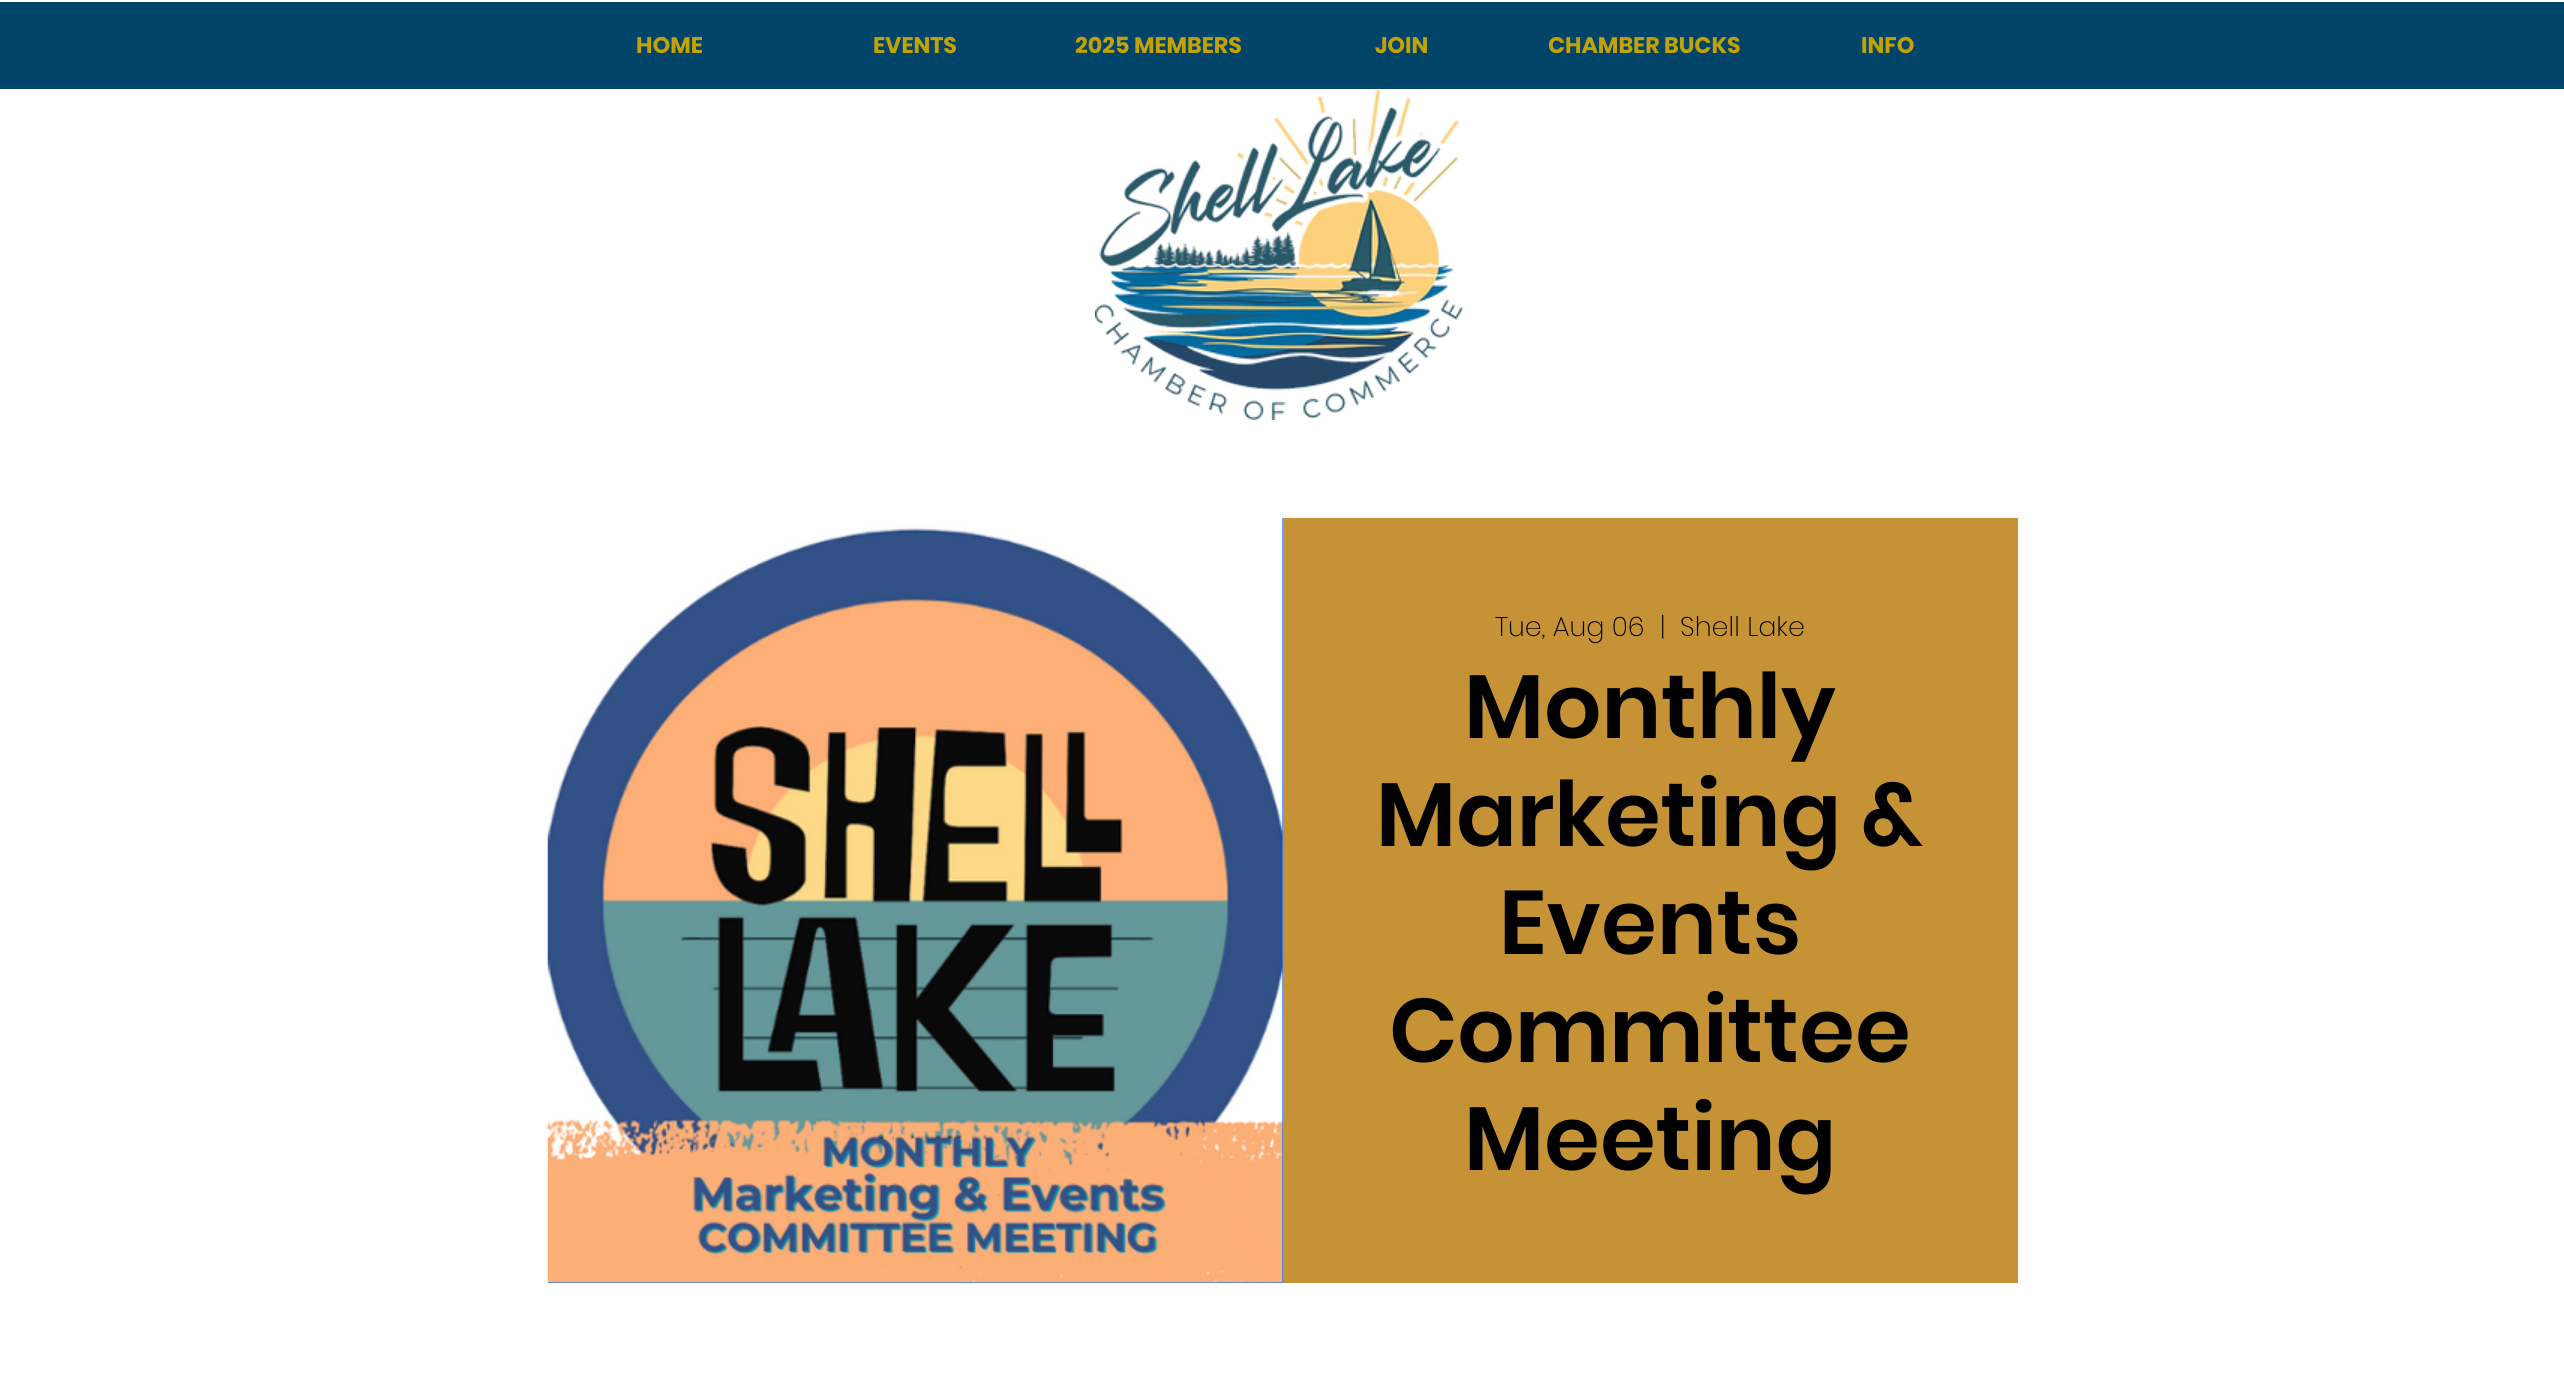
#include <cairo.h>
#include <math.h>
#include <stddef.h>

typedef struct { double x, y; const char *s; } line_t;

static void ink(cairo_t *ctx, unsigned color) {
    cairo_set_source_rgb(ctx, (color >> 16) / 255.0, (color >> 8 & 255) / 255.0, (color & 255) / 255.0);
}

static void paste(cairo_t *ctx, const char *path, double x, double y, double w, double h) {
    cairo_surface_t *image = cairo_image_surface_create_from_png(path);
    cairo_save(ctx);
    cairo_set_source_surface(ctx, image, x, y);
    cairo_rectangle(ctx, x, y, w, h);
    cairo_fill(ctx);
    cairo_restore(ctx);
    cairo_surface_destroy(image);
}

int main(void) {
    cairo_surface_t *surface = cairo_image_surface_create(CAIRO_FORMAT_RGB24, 2564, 1392);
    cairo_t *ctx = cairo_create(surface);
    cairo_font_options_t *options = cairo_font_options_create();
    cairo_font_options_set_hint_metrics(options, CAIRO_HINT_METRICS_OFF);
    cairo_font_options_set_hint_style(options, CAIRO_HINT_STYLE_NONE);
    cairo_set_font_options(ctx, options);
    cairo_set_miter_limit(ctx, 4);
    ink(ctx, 0xFFFFFF);
    cairo_paint(ctx);
    ink(ctx, 0x00446A);
    cairo_rectangle(ctx, 0, 2, 2564, 87);
    cairo_fill(ctx);
    cairo_select_font_face(ctx, "Poppins", CAIRO_FONT_SLANT_NORMAL, CAIRO_FONT_WEIGHT_BOLD);
    cairo_set_font_size(ctx, 22.5);
    ink(ctx, 0xC2A205);
    {
        static const line_t items[] = {
            {636, 53, "HOME"},
            {873, 53, "EVENTS"},
            {1075, 53, "2025 MEMBERS"},
            {1375, 53, "JOIN"},
            {1548, 53, "CHAMBER BUCKS"},
            {1861, 53, "INFO"},
        };
        for (size_t i = 0; i < sizeof items / sizeof *items; i++) {
            cairo_move_to(ctx, items[i].x, items[i].y);
            cairo_show_text(ctx, items[i].s);
        }
    }
    paste(ctx, "media/1.png", 1095, 90, 368, 330);
    ink(ctx, 0x397DF1);
    cairo_rectangle(ctx, 548, 518, 735, 765);
    cairo_fill(ctx);
    paste(ctx, "media/2.png", 547, 518, 736, 765);
    ink(ctx, 0xC59335);
    cairo_rectangle(ctx, 1283, 518, 735, 765);
    cairo_fill(ctx);
    cairo_select_font_face(ctx, "Poppins ExtraLight", CAIRO_FONT_SLANT_NORMAL, CAIRO_FONT_WEIGHT_NORMAL);
    cairo_set_font_size(ctx, 27);
    ink(ctx, 0x000000);
    {
        static const line_t items[] = {
            {1495, 636, "Tue, Aug 06"},
            {1660, 636, "|"},
            {1680, 636, "Shell Lake"},
        };
        for (size_t i = 0; i < sizeof items / sizeof *items; i++) {
            cairo_move_to(ctx, items[i].x, items[i].y);
            cairo_show_text(ctx, items[i].s);
        }
    }
    cairo_select_font_face(ctx, "Poppins SemiBold", CAIRO_FONT_SLANT_NORMAL, CAIRO_FONT_WEIGHT_NORMAL);
    cairo_set_font_size(ctx, 90);
    {
        static const line_t items[] = {
            {1464, 738, "Monthly"},
            {1376, 846, "Marketing &"},
            {1499, 954, "Events"},
            {1389, 1062, "Committee"},
            {1464, 1170, "Meeting"},
        };
        for (size_t i = 0; i < sizeof items / sizeof *items; i++) {
            cairo_move_to(ctx, items[i].x, items[i].y);
            cairo_show_text(ctx, items[i].s);
        }
    }
    cairo_surface_write_to_png(surface, "image.png");
    cairo_font_options_destroy(options);
    cairo_destroy(ctx);
    cairo_surface_destroy(surface);
    return 0;
}
